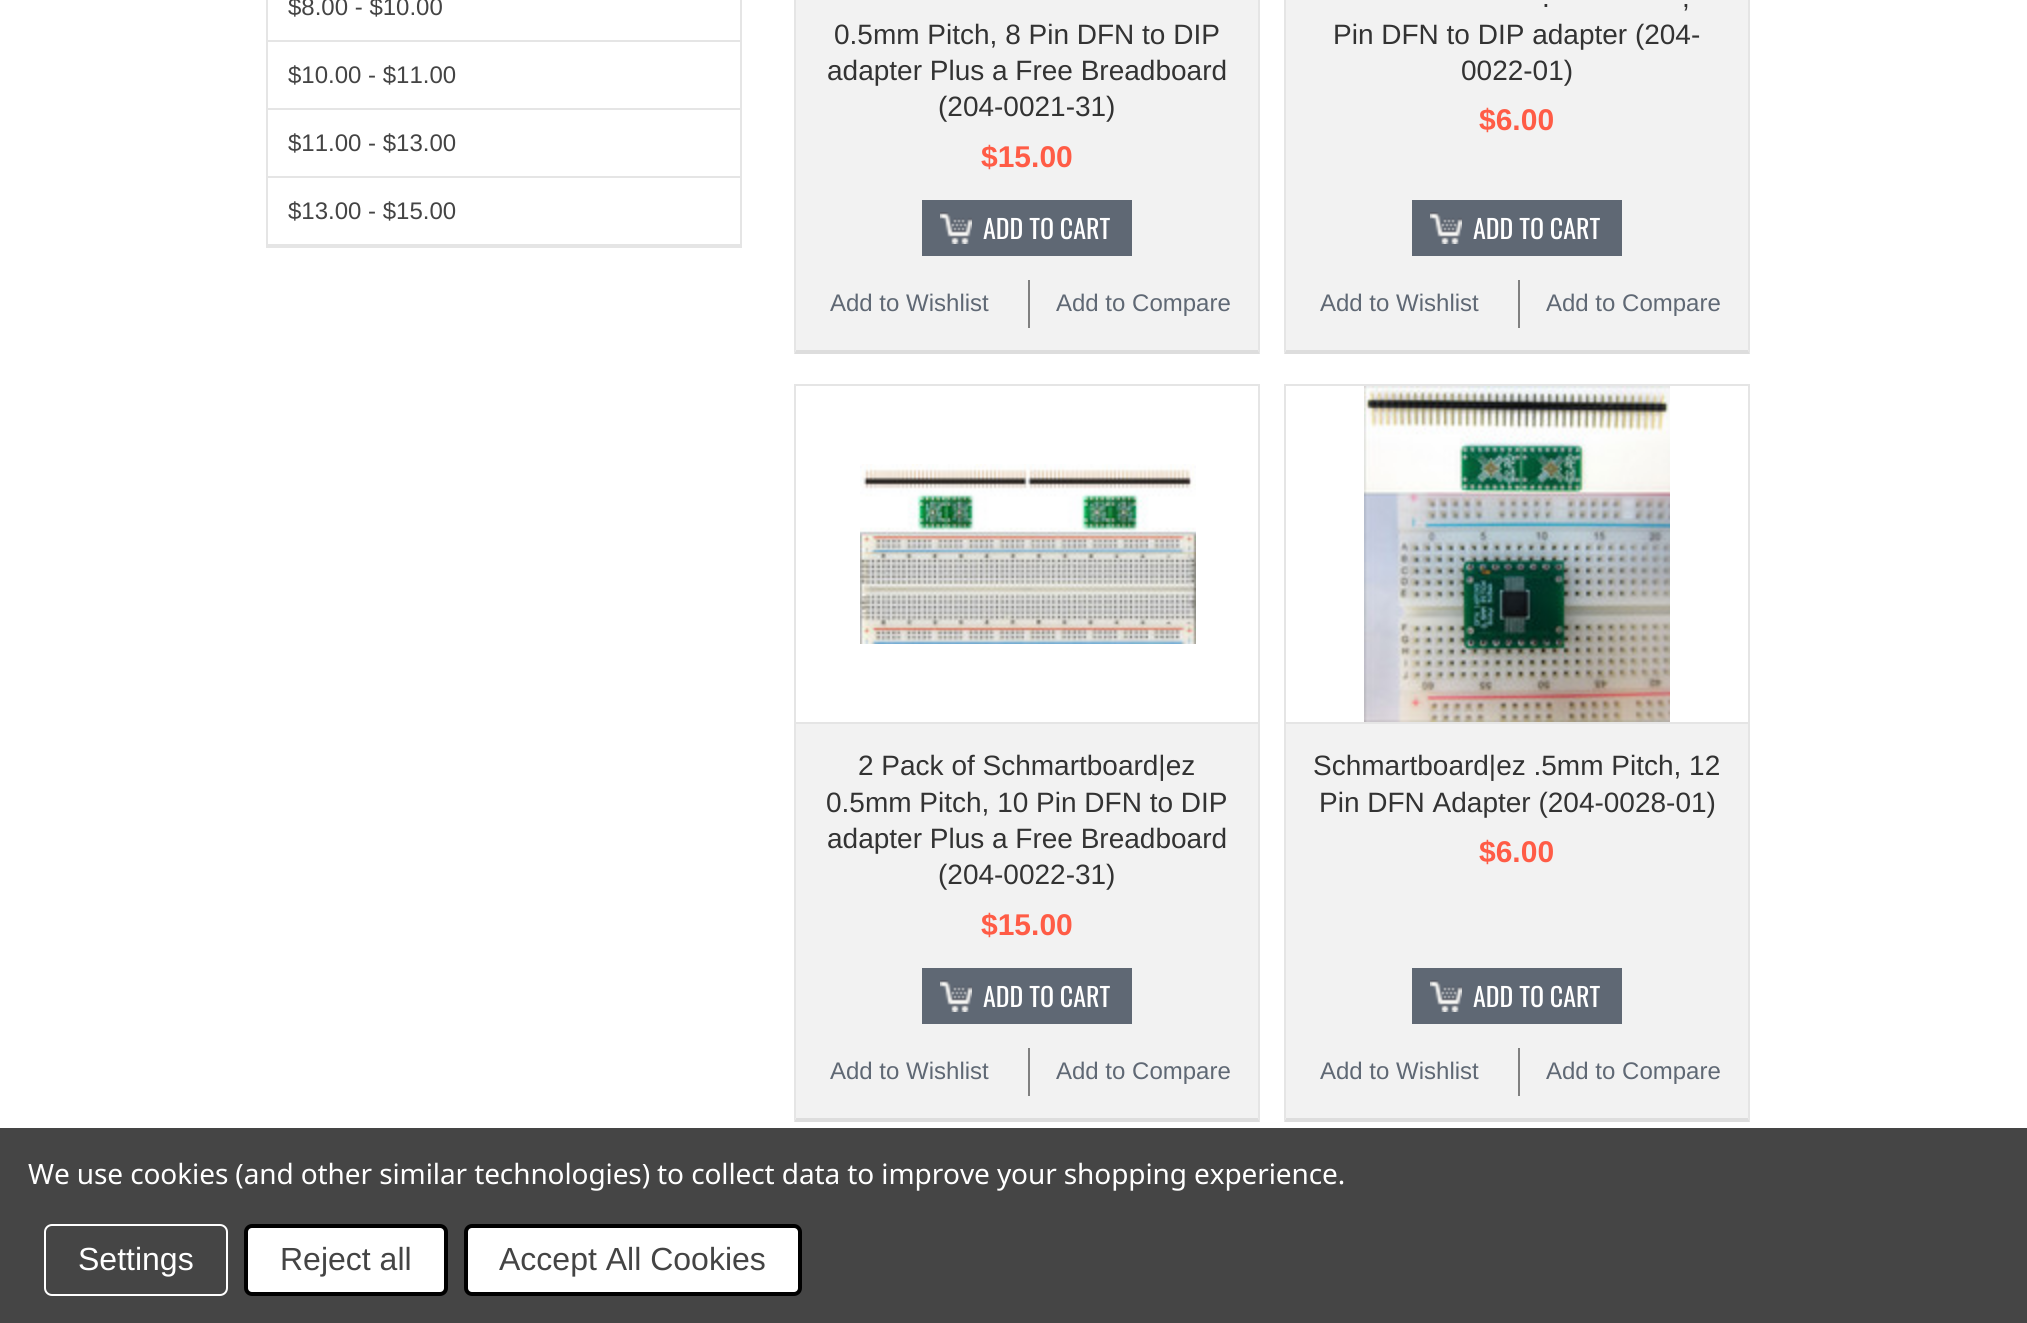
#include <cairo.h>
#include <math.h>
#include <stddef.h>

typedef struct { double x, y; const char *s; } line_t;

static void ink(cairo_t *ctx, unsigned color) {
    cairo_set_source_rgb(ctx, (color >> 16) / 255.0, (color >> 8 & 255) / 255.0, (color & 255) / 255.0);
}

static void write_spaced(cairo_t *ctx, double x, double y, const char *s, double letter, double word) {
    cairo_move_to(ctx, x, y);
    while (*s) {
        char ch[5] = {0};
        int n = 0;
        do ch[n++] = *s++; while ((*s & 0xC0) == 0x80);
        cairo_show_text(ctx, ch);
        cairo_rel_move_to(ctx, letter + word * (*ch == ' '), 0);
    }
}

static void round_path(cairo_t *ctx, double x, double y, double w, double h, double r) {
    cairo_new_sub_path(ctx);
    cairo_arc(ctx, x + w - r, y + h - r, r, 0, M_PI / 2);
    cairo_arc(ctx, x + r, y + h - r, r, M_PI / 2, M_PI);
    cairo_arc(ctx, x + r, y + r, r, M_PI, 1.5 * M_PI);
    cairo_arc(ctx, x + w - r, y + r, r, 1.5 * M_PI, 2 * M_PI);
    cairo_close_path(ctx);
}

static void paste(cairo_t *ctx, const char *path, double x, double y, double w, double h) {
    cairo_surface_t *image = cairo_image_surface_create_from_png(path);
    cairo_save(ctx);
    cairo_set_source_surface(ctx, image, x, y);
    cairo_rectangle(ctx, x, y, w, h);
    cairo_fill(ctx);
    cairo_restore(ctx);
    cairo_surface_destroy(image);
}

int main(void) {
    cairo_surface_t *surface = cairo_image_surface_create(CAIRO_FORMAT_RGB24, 2027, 1323);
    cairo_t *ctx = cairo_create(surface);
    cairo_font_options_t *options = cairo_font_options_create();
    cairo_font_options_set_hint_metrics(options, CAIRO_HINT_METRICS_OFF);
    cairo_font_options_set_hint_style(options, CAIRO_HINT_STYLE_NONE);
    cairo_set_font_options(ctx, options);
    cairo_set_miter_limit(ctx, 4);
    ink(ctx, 0xFFFFFF);
    cairo_paint(ctx);
    cairo_rectangle(ctx, 267, -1, 474, 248);
    ink(ctx, 0xE5E5E5);
    cairo_stroke(ctx);
    cairo_rectangle(ctx, 268, 40, 472, 2);
    cairo_fill(ctx);
    cairo_select_font_face(ctx, "Liberation Sans", CAIRO_FONT_SLANT_NORMAL, CAIRO_FONT_WEIGHT_NORMAL);
    cairo_set_font_size(ctx, 24);
    ink(ctx, 0x444444);
    cairo_move_to(ctx, 288, 15);
    cairo_show_text(ctx, "$8.00 - $10.00");
    ink(ctx, 0xE5E5E5);
    cairo_rectangle(ctx, 268, 108, 472, 2);
    cairo_fill(ctx);
    ink(ctx, 0x444444);
    cairo_move_to(ctx, 288, 83);
    cairo_show_text(ctx, "$10.00 - $11.00");
    ink(ctx, 0xE5E5E5);
    cairo_rectangle(ctx, 268, 176, 472, 2);
    cairo_fill(ctx);
    ink(ctx, 0x444444);
    cairo_move_to(ctx, 288, 151);
    cairo_show_text(ctx, "$11.00 - $13.00");
    ink(ctx, 0xE5E5E5);
    cairo_rectangle(ctx, 268, 244, 472, 2);
    cairo_fill(ctx);
    ink(ctx, 0x444444);
    cairo_move_to(ctx, 288, 219);
    cairo_show_text(ctx, "$13.00 - $15.00");
    ink(ctx, 0xF2F2F2);
    cairo_rectangle(ctx, 796, 0, 462, 350);
    cairo_fill(ctx);
    ink(ctx, 0xE5E5E5);
    cairo_new_path(ctx);
    cairo_move_to(ctx, 1260, -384);
    cairo_line_to(ctx, 1260, 354);
    cairo_line_to(ctx, 1258, 350);
    cairo_line_to(ctx, 1258, -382);
    cairo_close_path(ctx);
    cairo_fill(ctx);
    ink(ctx, 0xDDDDDD);
    cairo_new_path(ctx);
    cairo_move_to(ctx, 1260, 354);
    cairo_line_to(ctx, 794, 354);
    cairo_line_to(ctx, 796, 350);
    cairo_line_to(ctx, 1258, 350);
    cairo_close_path(ctx);
    cairo_fill(ctx);
    ink(ctx, 0xE5E5E5);
    cairo_new_path(ctx);
    cairo_move_to(ctx, 794, 354);
    cairo_line_to(ctx, 794, -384);
    cairo_line_to(ctx, 796, -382);
    cairo_line_to(ctx, 796, 350);
    cairo_close_path(ctx);
    cairo_fill(ctx);
    cairo_set_font_size(ctx, 28);
    ink(ctx, 0x333333);
    {
        static const line_t items[] = {
            {834, 44, "0.5mm Pitch, 8 Pin DFN to DIP"},
            {827, 80, "adapter Plus a Free Breadboard"},
            {938, 116, "(204-0021-31)"},
        };
        for (size_t i = 0; i < sizeof items / sizeof *items; i++) {
            cairo_move_to(ctx, items[i].x, items[i].y);
            cairo_show_text(ctx, items[i].s);
        }
    }
    cairo_select_font_face(ctx, "Liberation Sans", CAIRO_FONT_SLANT_NORMAL, CAIRO_FONT_WEIGHT_BOLD);
    cairo_set_font_size(ctx, 30);
    ink(ctx, 0xFF5C46);
    cairo_move_to(ctx, 981, 167);
    cairo_show_text(ctx, "$15.00");
    ink(ctx, 0x5F6874);
    cairo_rectangle(ctx, 922, 200, 210, 56);
    cairo_fill(ctx);
    paste(ctx, "media/1.png", 940, 212, 32, 32);
    cairo_select_font_face(ctx, "Oswald", CAIRO_FONT_SLANT_NORMAL, CAIRO_FONT_WEIGHT_NORMAL);
    cairo_set_font_size(ctx, 26);
    ink(ctx, 0xFFFFFF);
    cairo_move_to(ctx, 983, 239);
    cairo_show_text(ctx, "ADD TO CART");
    cairo_select_font_face(ctx, "Liberation Sans", CAIRO_FONT_SLANT_NORMAL, CAIRO_FONT_WEIGHT_NORMAL);
    cairo_set_font_size(ctx, 24);
    ink(ctx, 0x5F6874);
    cairo_move_to(ctx, 830, 311);
    cairo_show_text(ctx, "Add to Wishlist");
    ink(ctx, 0x808080);
    cairo_rectangle(ctx, 1028, 280, 2, 48);
    cairo_fill(ctx);
    ink(ctx, 0x5F6874);
    cairo_move_to(ctx, 1056, 311);
    cairo_show_text(ctx, "Add to Compare");
    ink(ctx, 0xF2F2F2);
    cairo_rectangle(ctx, 1286, 0, 462, 350);
    cairo_fill(ctx);
    ink(ctx, 0xE5E5E5);
    cairo_new_path(ctx);
    cairo_move_to(ctx, 1750, -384);
    cairo_line_to(ctx, 1750, 354);
    cairo_line_to(ctx, 1748, 350);
    cairo_line_to(ctx, 1748, -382);
    cairo_close_path(ctx);
    cairo_fill(ctx);
    ink(ctx, 0xDDDDDD);
    cairo_new_path(ctx);
    cairo_move_to(ctx, 1750, 354);
    cairo_line_to(ctx, 1284, 354);
    cairo_line_to(ctx, 1286, 350);
    cairo_line_to(ctx, 1748, 350);
    cairo_close_path(ctx);
    cairo_fill(ctx);
    ink(ctx, 0xE5E5E5);
    cairo_new_path(ctx);
    cairo_move_to(ctx, 1284, 354);
    cairo_line_to(ctx, 1284, -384);
    cairo_line_to(ctx, 1286, -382);
    cairo_line_to(ctx, 1286, 350);
    cairo_close_path(ctx);
    cairo_fill(ctx);
    cairo_set_font_size(ctx, 28);
    ink(ctx, 0x333333);
    {
        static const line_t items[] = {
            {1542, 7, "."},
            {1682, 7, ","},
            {1333, 44, "Pin DFN to DIP adapter (204-"},
            {1461, 80, "0022-01)"},
        };
        for (size_t i = 0; i < sizeof items / sizeof *items; i++) {
            cairo_move_to(ctx, items[i].x, items[i].y);
            cairo_show_text(ctx, items[i].s);
        }
    }
    cairo_select_font_face(ctx, "Liberation Sans", CAIRO_FONT_SLANT_NORMAL, CAIRO_FONT_WEIGHT_BOLD);
    cairo_set_font_size(ctx, 30);
    ink(ctx, 0xFF5C46);
    cairo_move_to(ctx, 1479, 130);
    cairo_show_text(ctx, "$6.00");
    ink(ctx, 0x5F6874);
    cairo_rectangle(ctx, 1412, 200, 210, 56);
    cairo_fill(ctx);
    paste(ctx, "media/1.png", 1430, 212, 32, 32);
    cairo_select_font_face(ctx, "Oswald", CAIRO_FONT_SLANT_NORMAL, CAIRO_FONT_WEIGHT_NORMAL);
    cairo_set_font_size(ctx, 26);
    ink(ctx, 0xFFFFFF);
    cairo_move_to(ctx, 1473, 239);
    cairo_show_text(ctx, "ADD TO CART");
    cairo_select_font_face(ctx, "Liberation Sans", CAIRO_FONT_SLANT_NORMAL, CAIRO_FONT_WEIGHT_NORMAL);
    cairo_set_font_size(ctx, 24);
    ink(ctx, 0x5F6874);
    cairo_move_to(ctx, 1320, 311);
    cairo_show_text(ctx, "Add to Wishlist");
    ink(ctx, 0x808080);
    cairo_rectangle(ctx, 1518, 280, 2, 48);
    cairo_fill(ctx);
    ink(ctx, 0x5F6874);
    cairo_move_to(ctx, 1546, 311);
    cairo_show_text(ctx, "Add to Compare");
    ink(ctx, 0xF2F2F2);
    cairo_rectangle(ctx, 796, 724, 462, 394);
    cairo_fill(ctx);
    ink(ctx, 0xE5E5E5);
    cairo_rectangle(ctx, 794, 384, 466, 2);
    cairo_fill(ctx);
    cairo_new_path(ctx);
    cairo_move_to(ctx, 1260, 384);
    cairo_line_to(ctx, 1260, 1122);
    cairo_line_to(ctx, 1258, 1118);
    cairo_line_to(ctx, 1258, 386);
    cairo_close_path(ctx);
    cairo_fill(ctx);
    ink(ctx, 0xDDDDDD);
    cairo_new_path(ctx);
    cairo_move_to(ctx, 1260, 1122);
    cairo_line_to(ctx, 794, 1122);
    cairo_line_to(ctx, 796, 1118);
    cairo_line_to(ctx, 1258, 1118);
    cairo_close_path(ctx);
    cairo_fill(ctx);
    ink(ctx, 0xE5E5E5);
    cairo_new_path(ctx);
    cairo_move_to(ctx, 794, 1122);
    cairo_line_to(ctx, 794, 384);
    cairo_line_to(ctx, 796, 386);
    cairo_line_to(ctx, 796, 1118);
    cairo_close_path(ctx);
    cairo_fill(ctx);
    cairo_rectangle(ctx, 796, 722, 462, 2);
    cairo_fill(ctx);
    paste(ctx, "media/2.png", 860, 464, 336, 180);
    cairo_set_font_size(ctx, 28);
    ink(ctx, 0x333333);
    {
        static const line_t items[] = {
            {858, 775, "2 Pack of Schmartboard|ez"},
            {826, 812, "0.5mm Pitch, 10 Pin DFN to DIP"},
            {827, 848, "adapter Plus a Free Breadboard"},
            {938, 884, "(204-0022-31)"},
        };
        for (size_t i = 0; i < sizeof items / sizeof *items; i++) {
            cairo_move_to(ctx, items[i].x, items[i].y);
            cairo_show_text(ctx, items[i].s);
        }
    }
    cairo_select_font_face(ctx, "Liberation Sans", CAIRO_FONT_SLANT_NORMAL, CAIRO_FONT_WEIGHT_BOLD);
    cairo_set_font_size(ctx, 30);
    ink(ctx, 0xFF5C46);
    cairo_move_to(ctx, 981, 935);
    cairo_show_text(ctx, "$15.00");
    ink(ctx, 0x5F6874);
    cairo_rectangle(ctx, 922, 968, 210, 56);
    cairo_fill(ctx);
    paste(ctx, "media/1.png", 940, 980, 32, 32);
    cairo_select_font_face(ctx, "Oswald", CAIRO_FONT_SLANT_NORMAL, CAIRO_FONT_WEIGHT_NORMAL);
    cairo_set_font_size(ctx, 26);
    ink(ctx, 0xFFFFFF);
    cairo_move_to(ctx, 983, 1007);
    cairo_show_text(ctx, "ADD TO CART");
    cairo_select_font_face(ctx, "Liberation Sans", CAIRO_FONT_SLANT_NORMAL, CAIRO_FONT_WEIGHT_NORMAL);
    cairo_set_font_size(ctx, 24);
    ink(ctx, 0x5F6874);
    cairo_move_to(ctx, 830, 1079);
    cairo_show_text(ctx, "Add to Wishlist");
    ink(ctx, 0x808080);
    cairo_rectangle(ctx, 1028, 1048, 2, 48);
    cairo_fill(ctx);
    ink(ctx, 0x5F6874);
    cairo_move_to(ctx, 1056, 1079);
    cairo_show_text(ctx, "Add to Compare");
    ink(ctx, 0xF2F2F2);
    cairo_rectangle(ctx, 1286, 724, 462, 394);
    cairo_fill(ctx);
    ink(ctx, 0xE5E5E5);
    cairo_rectangle(ctx, 1284, 384, 466, 2);
    cairo_fill(ctx);
    cairo_new_path(ctx);
    cairo_move_to(ctx, 1750, 384);
    cairo_line_to(ctx, 1750, 1122);
    cairo_line_to(ctx, 1748, 1118);
    cairo_line_to(ctx, 1748, 386);
    cairo_close_path(ctx);
    cairo_fill(ctx);
    ink(ctx, 0xDDDDDD);
    cairo_new_path(ctx);
    cairo_move_to(ctx, 1750, 1122);
    cairo_line_to(ctx, 1284, 1122);
    cairo_line_to(ctx, 1286, 1118);
    cairo_line_to(ctx, 1748, 1118);
    cairo_close_path(ctx);
    cairo_fill(ctx);
    ink(ctx, 0xE5E5E5);
    cairo_new_path(ctx);
    cairo_move_to(ctx, 1284, 1122);
    cairo_line_to(ctx, 1284, 384);
    cairo_line_to(ctx, 1286, 386);
    cairo_line_to(ctx, 1286, 1118);
    cairo_close_path(ctx);
    cairo_fill(ctx);
    cairo_rectangle(ctx, 1286, 722, 462, 2);
    cairo_fill(ctx);
    paste(ctx, "media/3.png", 1364, 386, 306, 336);
    cairo_set_font_size(ctx, 28);
    ink(ctx, 0x333333);
    cairo_move_to(ctx, 1313, 775);
    cairo_show_text(ctx, "Schmartboard|ez .5mm Pitch, 12");
    cairo_move_to(ctx, 1319, 812);
    cairo_show_text(ctx, "Pin DFN Adapter (204-0028-01)");
    cairo_select_font_face(ctx, "Liberation Sans", CAIRO_FONT_SLANT_NORMAL, CAIRO_FONT_WEIGHT_BOLD);
    cairo_set_font_size(ctx, 30);
    ink(ctx, 0xFF5C46);
    cairo_move_to(ctx, 1479, 862);
    cairo_show_text(ctx, "$6.00");
    ink(ctx, 0x5F6874);
    cairo_rectangle(ctx, 1412, 968, 210, 56);
    cairo_fill(ctx);
    paste(ctx, "media/1.png", 1430, 980, 32, 32);
    cairo_select_font_face(ctx, "Oswald", CAIRO_FONT_SLANT_NORMAL, CAIRO_FONT_WEIGHT_NORMAL);
    cairo_set_font_size(ctx, 26);
    ink(ctx, 0xFFFFFF);
    cairo_move_to(ctx, 1473, 1007);
    cairo_show_text(ctx, "ADD TO CART");
    cairo_select_font_face(ctx, "Liberation Sans", CAIRO_FONT_SLANT_NORMAL, CAIRO_FONT_WEIGHT_NORMAL);
    cairo_set_font_size(ctx, 24);
    ink(ctx, 0x5F6874);
    cairo_move_to(ctx, 1320, 1079);
    cairo_show_text(ctx, "Add to Wishlist");
    ink(ctx, 0x808080);
    cairo_rectangle(ctx, 1518, 1048, 2, 48);
    cairo_fill(ctx);
    ink(ctx, 0x5F6874);
    cairo_move_to(ctx, 1546, 1079);
    cairo_show_text(ctx, "Add to Compare");
    ink(ctx, 0x454545);
    cairo_rectangle(ctx, 0, 1128, 2027, 195);
    cairo_fill(ctx);
    cairo_select_font_face(ctx, "Noto Sans", CAIRO_FONT_SLANT_NORMAL, CAIRO_FONT_WEIGHT_NORMAL);
    cairo_set_font_size(ctx, 28);
    ink(ctx, 0xFFFFFF);
    write_spaced(ctx, 28, 1184, "We use cookies (and other similar technologies) to collect data to improve your shopping experience.", -0.1, 0);
    round_path(ctx, 45, 1225, 182, 70, 7);
    cairo_stroke(ctx);
    cairo_select_font_face(ctx, "Liberation Sans", CAIRO_FONT_SLANT_NORMAL, CAIRO_FONT_WEIGHT_NORMAL);
    cairo_set_font_size(ctx, 32);
    cairo_move_to(ctx, 78, 1270);
    cairo_show_text(ctx, "Settings");
    round_path(ctx, 246, 1226, 200, 68, 6);
    cairo_fill_preserve(ctx);
    ink(ctx, 0x000000);
    cairo_set_line_width(ctx, 4);
    cairo_stroke(ctx);
    ink(ctx, 0x444444);
    cairo_move_to(ctx, 280, 1270);
    cairo_show_text(ctx, "Reject all");
    ink(ctx, 0xFFFFFF);
    round_path(ctx, 466, 1226, 334, 68, 6);
    cairo_fill_preserve(ctx);
    ink(ctx, 0x000000);
    cairo_stroke(ctx);
    ink(ctx, 0x444444);
    cairo_move_to(ctx, 499, 1270);
    cairo_show_text(ctx, "Accept All Cookies");
    cairo_surface_write_to_png(surface, "image.png");
    cairo_font_options_destroy(options);
    cairo_destroy(ctx);
    cairo_surface_destroy(surface);
    return 0;
}
